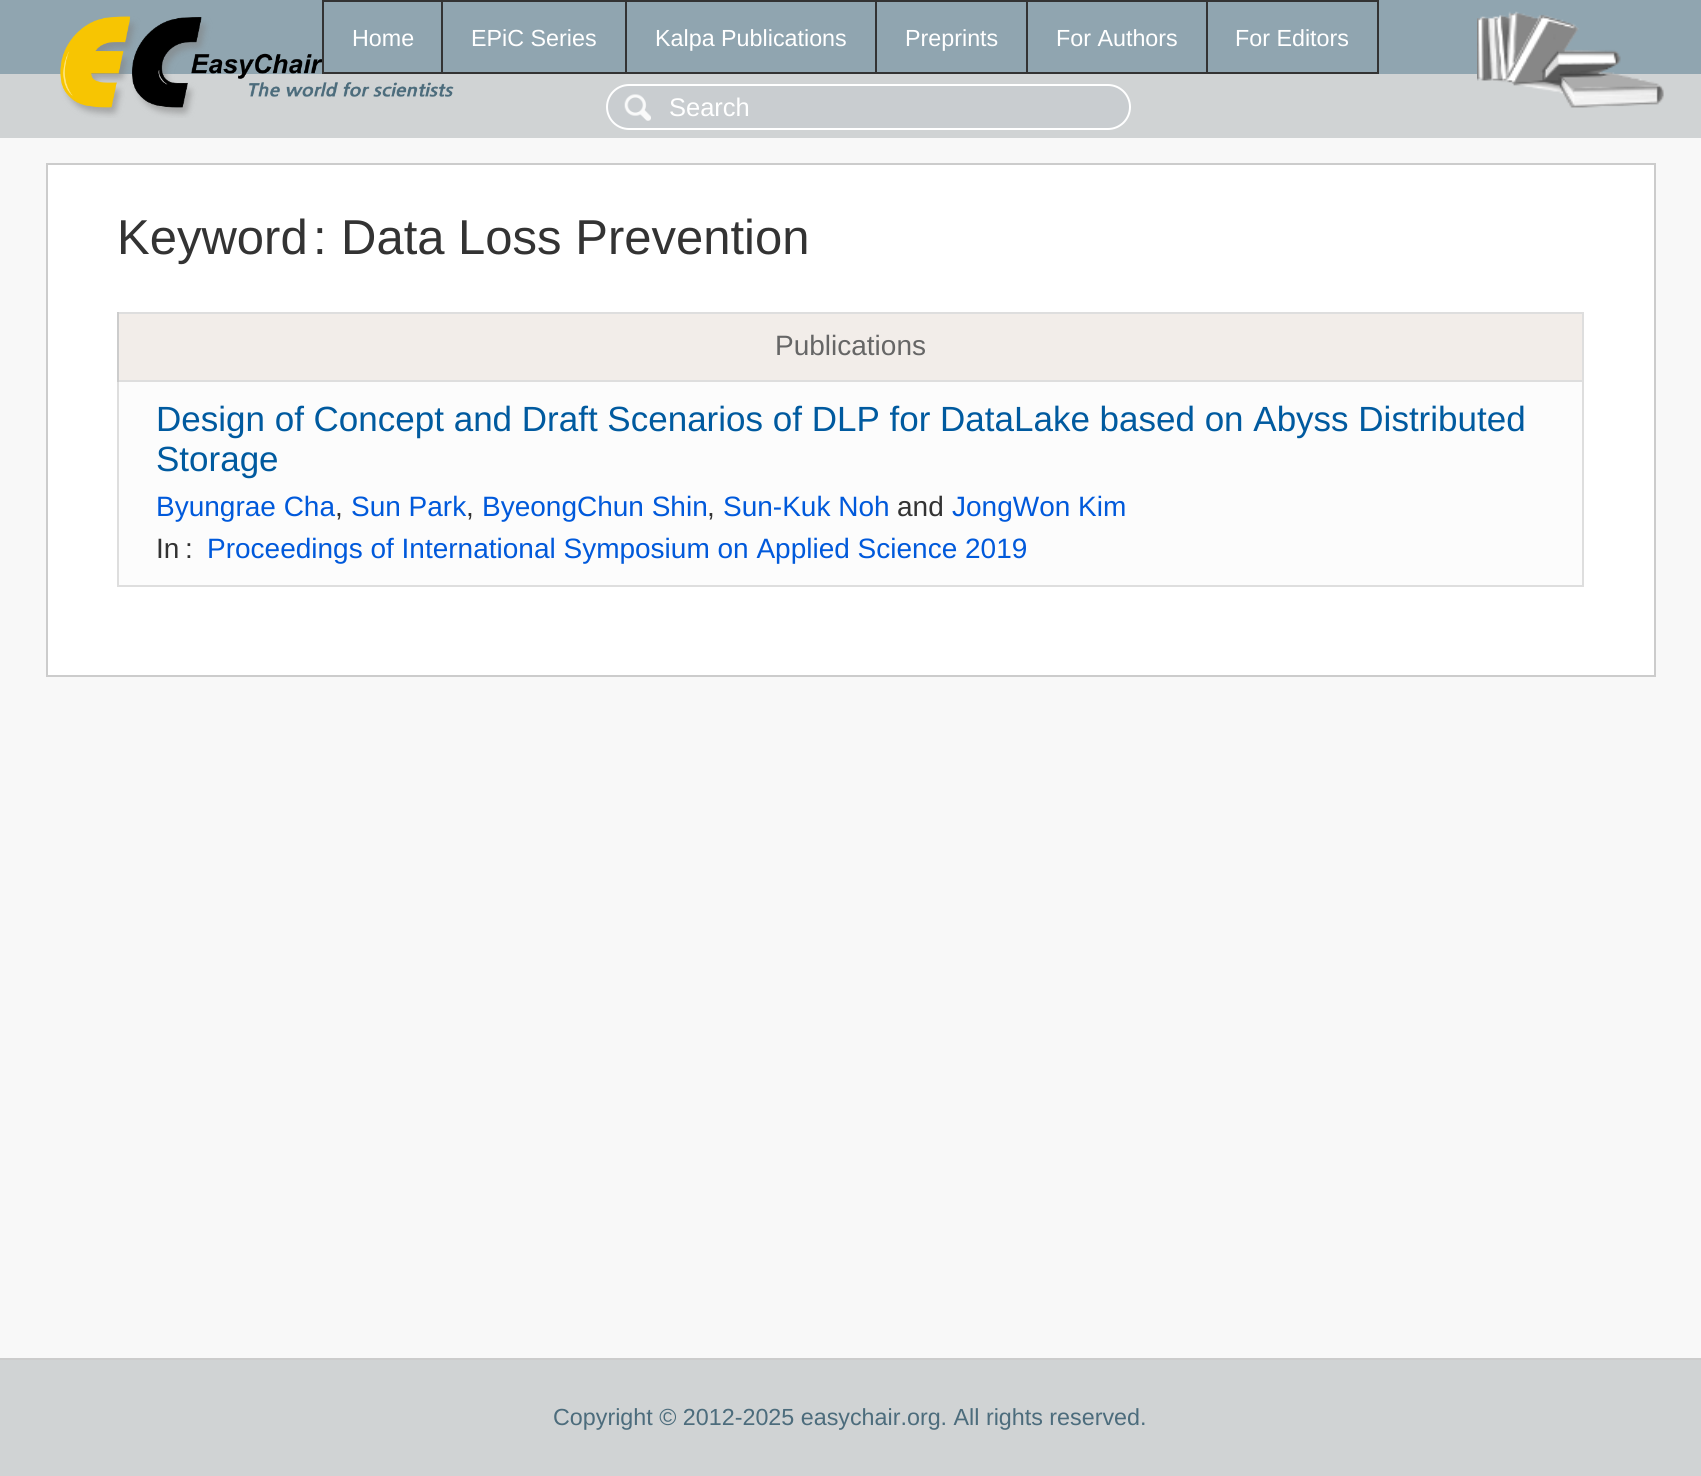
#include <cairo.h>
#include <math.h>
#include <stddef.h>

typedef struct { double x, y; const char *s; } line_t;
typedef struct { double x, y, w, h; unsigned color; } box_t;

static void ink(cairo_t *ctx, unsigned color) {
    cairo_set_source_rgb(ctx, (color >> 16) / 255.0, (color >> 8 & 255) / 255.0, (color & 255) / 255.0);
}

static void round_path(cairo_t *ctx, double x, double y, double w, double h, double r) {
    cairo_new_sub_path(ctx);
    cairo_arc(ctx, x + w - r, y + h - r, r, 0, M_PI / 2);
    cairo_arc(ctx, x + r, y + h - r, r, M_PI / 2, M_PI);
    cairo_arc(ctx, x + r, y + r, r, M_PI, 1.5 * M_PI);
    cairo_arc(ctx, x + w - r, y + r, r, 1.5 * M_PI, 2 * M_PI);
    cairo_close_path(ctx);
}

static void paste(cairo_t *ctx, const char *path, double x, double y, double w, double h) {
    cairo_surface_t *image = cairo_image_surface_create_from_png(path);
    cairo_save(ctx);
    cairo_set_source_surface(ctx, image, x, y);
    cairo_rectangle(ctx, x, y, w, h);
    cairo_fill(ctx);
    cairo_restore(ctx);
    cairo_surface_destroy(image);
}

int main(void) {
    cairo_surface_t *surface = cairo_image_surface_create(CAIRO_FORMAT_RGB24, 1701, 1476);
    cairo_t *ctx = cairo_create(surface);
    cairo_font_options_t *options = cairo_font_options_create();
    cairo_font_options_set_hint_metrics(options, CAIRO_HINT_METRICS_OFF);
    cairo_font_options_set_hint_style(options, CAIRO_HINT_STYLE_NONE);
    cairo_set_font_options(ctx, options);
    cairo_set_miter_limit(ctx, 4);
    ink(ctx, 0x90A5B0);
    cairo_paint(ctx);
    ink(ctx, 0xD0D3D4);
    cairo_rectangle(ctx, 0, 76, 1699, 61);
    cairo_fill(ctx);
    cairo_rectangle(ctx, 0, 74, 1701, 2);
    cairo_fill(ctx);
    paste(ctx, "media/1.png", 60, 16, 394, 102);
    {
        static const box_t items[] = {
            {1206, 0, 173, 2, 0x333333},
            {1377, 0, 2, 74, 0x333333},
            {1206, 72, 173, 2, 0x333333},
            {1206, 0, 2, 74, 0x333333},
            {1026, 0, 182, 2, 0x333333},
            {1026, 72, 182, 2, 0x333333},
            {1026, 0, 2, 74, 0x333333},
            {875, 0, 152, 2, 0x333333},
            {875, 72, 152, 2, 0x333333},
            {875, 0, 2, 74, 0x333333},
            {625, 0, 252, 2, 0x333333},
            {625, 72, 252, 2, 0x333333},
            {625, 0, 2, 74, 0x333333},
            {441, 0, 186, 2, 0x333333},
            {441, 72, 186, 2, 0x333333},
            {441, 0, 2, 74, 0x333333},
            {322, 0, 121, 2, 0x333333},
            {322, 72, 121, 2, 0x333333},
            {322, 0, 2, 74, 0x333333},
        };
        for (size_t i = 0; i < sizeof items / sizeof *items; i++) {
            ink(ctx, items[i].color);
            cairo_rectangle(ctx, items[i].x, items[i].y, items[i].w, items[i].h);
            cairo_fill(ctx);
        }
    }
    cairo_select_font_face(ctx, "Liberation Sans", CAIRO_FONT_SLANT_NORMAL, CAIRO_FONT_WEIGHT_NORMAL);
    cairo_set_font_size(ctx, 23.3);
    ink(ctx, 0xFFFFFF);
    {
        static const line_t items[] = {
            {352, 46, "Home"},
            {471, 46, "EPiC Series"},
            {655, 46, "Kalpa Publications"},
            {905, 46, "Preprints"},
            {1056, 46, "For Authors"},
            {1235, 46, "For Editors"},
        };
        for (size_t i = 0; i < sizeof items / sizeof *items; i++) {
            cairo_move_to(ctx, items[i].x, items[i].y);
            cairo_show_text(ctx, items[i].s);
        }
    }
    paste(ctx, "media/2.png", 1477, 11, 187, 97);
    ink(ctx, 0xD0D3D4);
    cairo_rectangle(ctx, 1699, 74, 2, 64);
    cairo_fill(ctx);
    cairo_rectangle(ctx, 0, 137, 1701, 1);
    cairo_fill(ctx);
    ink(ctx, 0xC9CDD0);
    round_path(ctx, 606, 84, 525, 46, 23);
    cairo_fill(ctx);
    paste(ctx, "media/3.png", 624, 94, 27, 27);
    round_path(ctx, 607, 85, 523, 44, 22);
    ink(ctx, 0xFFFFFF);
    cairo_stroke(ctx);
    cairo_set_font_size(ctx, 25.5);
    cairo_move_to(ctx, 669, 116);
    cairo_show_text(ctx, "Search");
    ink(ctx, 0xF8F8F8);
    cairo_rectangle(ctx, 0, 138, 1701, 1220);
    cairo_fill(ctx);
    ink(ctx, 0xFFFFFF);
    cairo_rectangle(ctx, 47, 164, 1608, 512);
    cairo_fill_preserve(ctx);
    ink(ctx, 0xCCCCCC);
    cairo_stroke(ctx);
    cairo_set_font_size(ctx, 49);
    ink(ctx, 0x333333);
    {
        static const line_t items[] = {
            {117, 254, "Keyword"},
            {313, 254, ":"},
            {341, 254, "Data Loss Prevention"},
        };
        for (size_t i = 0; i < sizeof items / sizeof *items; i++) {
            cairo_move_to(ctx, items[i].x, items[i].y);
            cairo_show_text(ctx, items[i].s);
        }
    }
    {
        static const box_t items[] = {
            {117, 312, 1467, 2, 0xDEDEDE},
            {1582, 312, 2, 274, 0xDEDEDE},
            {117, 585, 1467, 2, 0xDEDEDE},
            {117, 382, 2, 204, 0xDEDEDE},
            {119, 314, 1463, 66, 0xF2EDE9},
            {117, 380, 1467, 2, 0xDEDEDE},
            {117, 312, 2, 70, 0xCCCCCC},
        };
        for (size_t i = 0; i < sizeof items / sizeof *items; i++) {
            ink(ctx, items[i].color);
            cairo_rectangle(ctx, items[i].x, items[i].y, items[i].w, items[i].h);
            cairo_fill(ctx);
        }
    }
    cairo_set_font_size(ctx, 28);
    ink(ctx, 0x666666);
    cairo_move_to(ctx, 775, 355);
    cairo_show_text(ctx, "Publications");
    ink(ctx, 0xFCFCFC);
    cairo_rectangle(ctx, 119, 382, 1463, 203);
    cairo_fill(ctx);
    cairo_set_font_size(ctx, 35);
    ink(ctx, 0x005A9F);
    cairo_move_to(ctx, 156, 431);
    cairo_show_text(ctx, "Design of Concept and Draft Scenarios of DLP for DataLake based on Abyss Distributed");
    cairo_move_to(ctx, 156, 471);
    cairo_show_text(ctx, "Storage");
    cairo_set_font_size(ctx, 28);
    ink(ctx, 0x0059DB);
    cairo_move_to(ctx, 156, 516);
    cairo_show_text(ctx, "Byungrae Cha");
    ink(ctx, 0x333333);
    cairo_move_to(ctx, 335, 516);
    cairo_show_text(ctx, ",");
    ink(ctx, 0x0059DB);
    cairo_move_to(ctx, 351, 516);
    cairo_show_text(ctx, "Sun Park");
    ink(ctx, 0x333333);
    cairo_move_to(ctx, 466, 516);
    cairo_show_text(ctx, ",");
    ink(ctx, 0x0059DB);
    cairo_move_to(ctx, 482, 516);
    cairo_show_text(ctx, "ByeongChun Shin");
    ink(ctx, 0x333333);
    cairo_move_to(ctx, 707, 516);
    cairo_show_text(ctx, ",");
    ink(ctx, 0x0059DB);
    cairo_move_to(ctx, 723, 516);
    cairo_show_text(ctx, "Sun-Kuk Noh");
    ink(ctx, 0x333333);
    cairo_move_to(ctx, 897, 516);
    cairo_show_text(ctx, "and");
    ink(ctx, 0x0059DB);
    cairo_move_to(ctx, 952, 516);
    cairo_show_text(ctx, "JongWon Kim");
    ink(ctx, 0x333333);
    cairo_move_to(ctx, 156, 558);
    cairo_show_text(ctx, "In");
    cairo_move_to(ctx, 185, 558);
    cairo_show_text(ctx, ":");
    ink(ctx, 0x0059DB);
    cairo_move_to(ctx, 207, 558);
    cairo_show_text(ctx, "Proceedings of International Symposium on Applied Science 2019");
    ink(ctx, 0xD0D3D4);
    cairo_rectangle(ctx, 0, 1360, 1701, 116);
    cairo_fill(ctx);
    ink(ctx, 0xCCCCCC);
    cairo_rectangle(ctx, 0, 1358, 1701, 2);
    cairo_fill(ctx);
    cairo_set_font_size(ctx, 23.3);
    ink(ctx, 0x4C6C7C);
    cairo_move_to(ctx, 553, 1425);
    cairo_show_text(ctx, "Copyright © 2012-2025 easychair.org. All rights reserved.");
    cairo_surface_write_to_png(surface, "image.png");
    cairo_font_options_destroy(options);
    cairo_destroy(ctx);
    cairo_surface_destroy(surface);
    return 0;
}
